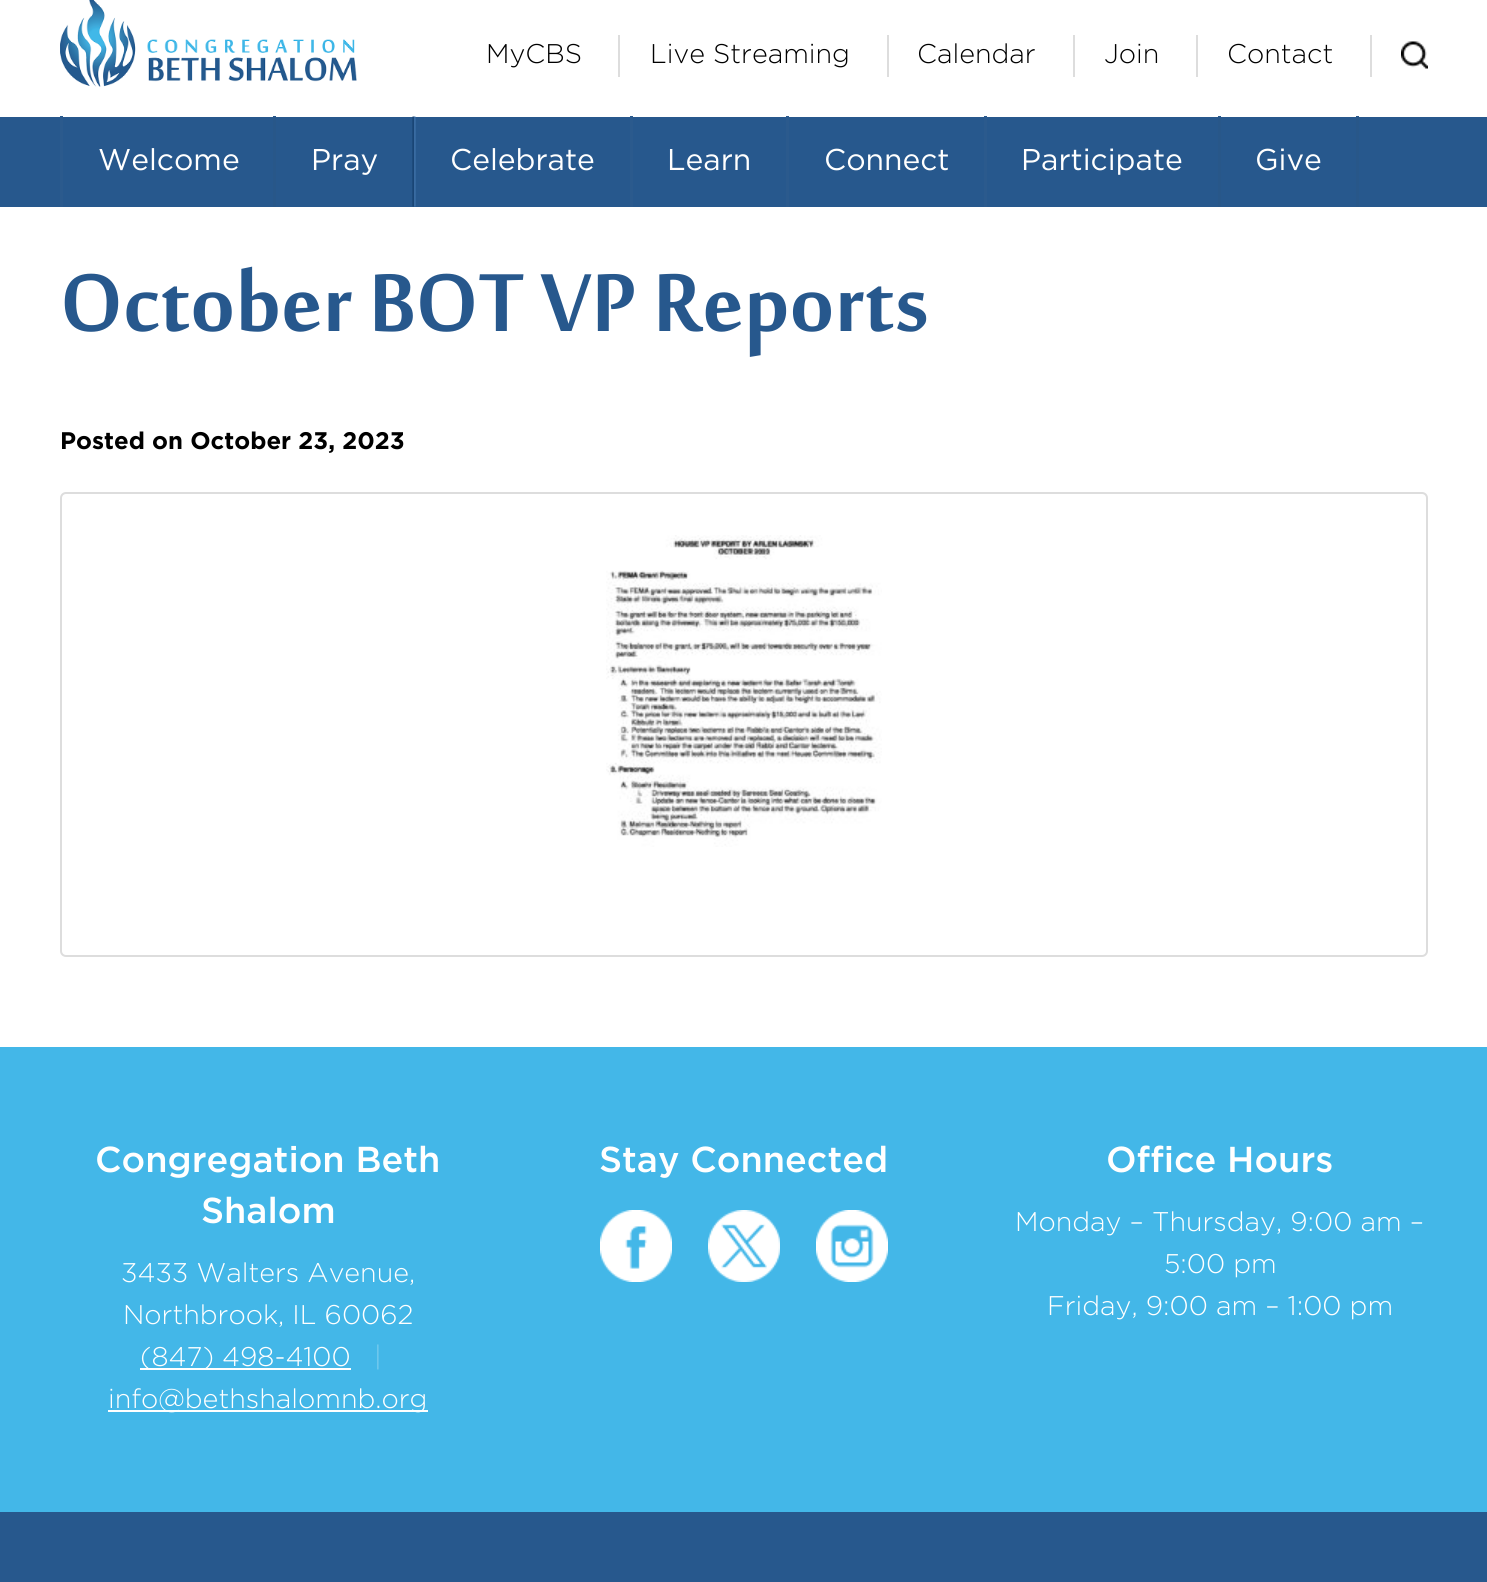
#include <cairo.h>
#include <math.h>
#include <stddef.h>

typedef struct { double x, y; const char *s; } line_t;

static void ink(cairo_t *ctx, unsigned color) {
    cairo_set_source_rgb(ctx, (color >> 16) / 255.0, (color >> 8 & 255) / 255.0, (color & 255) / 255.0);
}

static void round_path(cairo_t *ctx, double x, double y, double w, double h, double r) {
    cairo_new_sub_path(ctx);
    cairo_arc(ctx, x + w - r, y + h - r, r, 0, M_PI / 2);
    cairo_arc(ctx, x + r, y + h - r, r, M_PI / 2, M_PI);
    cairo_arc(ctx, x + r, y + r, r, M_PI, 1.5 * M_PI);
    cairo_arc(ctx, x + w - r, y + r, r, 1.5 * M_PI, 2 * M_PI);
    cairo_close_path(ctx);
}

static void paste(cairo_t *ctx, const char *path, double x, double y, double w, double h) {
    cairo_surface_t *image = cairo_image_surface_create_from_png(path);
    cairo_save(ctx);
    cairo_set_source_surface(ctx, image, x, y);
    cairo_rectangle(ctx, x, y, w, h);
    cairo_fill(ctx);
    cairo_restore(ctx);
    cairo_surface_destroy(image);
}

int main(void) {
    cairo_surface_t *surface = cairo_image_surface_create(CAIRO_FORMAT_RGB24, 1487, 1582);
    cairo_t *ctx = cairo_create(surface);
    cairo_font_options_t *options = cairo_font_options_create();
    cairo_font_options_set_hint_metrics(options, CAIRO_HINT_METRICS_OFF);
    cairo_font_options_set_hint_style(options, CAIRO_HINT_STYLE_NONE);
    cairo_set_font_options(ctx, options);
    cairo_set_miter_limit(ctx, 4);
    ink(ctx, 0x27588D);
    cairo_paint(ctx);
    ink(ctx, 0xFFFFFF);
    cairo_rectangle(ctx, 0, 0, 1487, 117);
    cairo_fill(ctx);
    paste(ctx, "media/1.png", 60, 0, 297, 87);
    cairo_select_font_face(ctx, "Gotham Light", CAIRO_FONT_SLANT_NORMAL, CAIRO_FONT_WEIGHT_NORMAL);
    cairo_set_font_size(ctx, 27);
    ink(ctx, 0x000000);
    cairo_move_to(ctx, 486, 63);
    cairo_show_text(ctx, "MyCBS");
    ink(ctx, 0xDDDDDD);
    cairo_rectangle(ctx, 618, 35, 2, 42);
    cairo_fill(ctx);
    ink(ctx, 0x000000);
    cairo_move_to(ctx, 650, 63);
    cairo_show_text(ctx, "Live Streaming");
    ink(ctx, 0xDDDDDD);
    cairo_rectangle(ctx, 887, 35, 2, 42);
    cairo_fill(ctx);
    ink(ctx, 0x000000);
    cairo_move_to(ctx, 917, 63);
    cairo_show_text(ctx, "Calendar");
    ink(ctx, 0xDDDDDD);
    cairo_rectangle(ctx, 1073, 35, 2, 42);
    cairo_fill(ctx);
    ink(ctx, 0x000000);
    cairo_move_to(ctx, 1104, 63);
    cairo_show_text(ctx, "Join");
    ink(ctx, 0xDDDDDD);
    cairo_rectangle(ctx, 1196, 35, 2, 42);
    cairo_fill(ctx);
    ink(ctx, 0x000000);
    cairo_move_to(ctx, 1227, 63);
    cairo_show_text(ctx, "Contact");
    ink(ctx, 0xDDDDDD);
    cairo_rectangle(ctx, 1370, 35, 2, 42);
    cairo_fill(ctx);
    paste(ctx, "media/2.png", 1401, 41, 27, 28);
    ink(ctx, 0x2B5A8D);
    cairo_rectangle(ctx, 60, 116, 3, 91);
    cairo_fill(ctx);
    ink(ctx, 0x285789);
    cairo_rectangle(ctx, 273, 116, 3, 91);
    cairo_fill(ctx);
    cairo_select_font_face(ctx, "Gotham", CAIRO_FONT_SLANT_NORMAL, CAIRO_FONT_WEIGHT_NORMAL);
    cairo_set_font_size(ctx, 30);
    ink(ctx, 0xFFFFFF);
    cairo_move_to(ctx, 98, 170);
    cairo_show_text(ctx, "Welcome");
    paste(ctx, "media/3.png", 412, 116, 4, 91);
    cairo_move_to(ctx, 311, 170);
    cairo_show_text(ctx, "Pray");
    ink(ctx, 0x2B5A8D);
    cairo_rectangle(ctx, 630, 116, 3, 91);
    cairo_fill(ctx);
    ink(ctx, 0xFFFFFF);
    cairo_move_to(ctx, 450, 170);
    cairo_show_text(ctx, "Celebrate");
    ink(ctx, 0x2B5A8D);
    cairo_rectangle(ctx, 786, 116, 3, 91);
    cairo_fill(ctx);
    ink(ctx, 0xFFFFFF);
    cairo_move_to(ctx, 667, 170);
    cairo_show_text(ctx, "Learn");
    ink(ctx, 0x2B5A8D);
    cairo_rectangle(ctx, 984, 116, 3, 91);
    cairo_fill(ctx);
    ink(ctx, 0xFFFFFF);
    cairo_move_to(ctx, 824, 170);
    cairo_show_text(ctx, "Connect");
    ink(ctx, 0x285789);
    cairo_rectangle(ctx, 1218, 116, 3, 91);
    cairo_fill(ctx);
    ink(ctx, 0xFFFFFF);
    cairo_move_to(ctx, 1021, 170);
    cairo_show_text(ctx, "Participate");
    ink(ctx, 0x285789);
    cairo_rectangle(ctx, 1356, 116, 3, 91);
    cairo_fill(ctx);
    ink(ctx, 0xFFFFFF);
    cairo_move_to(ctx, 1255, 170);
    cairo_show_text(ctx, "Give");
    cairo_rectangle(ctx, 0, 207, 1487, 840);
    cairo_fill(ctx);
    cairo_select_font_face(ctx, "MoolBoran", CAIRO_FONT_SLANT_NORMAL, CAIRO_FONT_WEIGHT_NORMAL);
    cairo_set_font_size(ctx, 126);
    ink(ctx, 0x27588D);
    cairo_move_to(ctx, 60, 331);
    cairo_show_text(ctx, "October BOT VP Reports");
    cairo_select_font_face(ctx, "Gotham", CAIRO_FONT_SLANT_NORMAL, CAIRO_FONT_WEIGHT_BOLD);
    cairo_set_font_size(ctx, 24);
    ink(ctx, 0x000000);
    cairo_move_to(ctx, 60, 449);
    cairo_show_text(ctx, "Posted on October 23, 2023");
    round_path(ctx, 61, 493, 1366, 463, 5);
    ink(ctx, 0xDDDDDD);
    cairo_stroke(ctx);
    paste(ctx, "media/4.png", 606, 535, 276, 312);
    ink(ctx, 0x43B7E8);
    cairo_rectangle(ctx, 0, 1047, 1487, 465);
    cairo_fill(ctx);
    cairo_select_font_face(ctx, "Gotham Medium", CAIRO_FONT_SLANT_NORMAL, CAIRO_FONT_WEIGHT_NORMAL);
    cairo_set_font_size(ctx, 36);
    ink(ctx, 0xFFFFFF);
    cairo_move_to(ctx, 95, 1172);
    cairo_show_text(ctx, "Congregation Beth");
    cairo_move_to(ctx, 201, 1223);
    cairo_show_text(ctx, "Shalom");
    cairo_select_font_face(ctx, "Gotham Light", CAIRO_FONT_SLANT_NORMAL, CAIRO_FONT_WEIGHT_NORMAL);
    cairo_set_font_size(ctx, 27);
    cairo_move_to(ctx, 121, 1282);
    cairo_show_text(ctx, "3433 Walters Avenue,");
    cairo_move_to(ctx, 123, 1324);
    cairo_show_text(ctx, "Northbrook, IL 60062");
    cairo_rectangle(ctx, 140, 1368, 211, 2);
    cairo_fill(ctx);
    cairo_move_to(ctx, 140, 1366);
    cairo_show_text(ctx, "(847) 498-4100");
    ink(ctx, 0x7BCDEF);
    cairo_move_to(ctx, 374, 1366);
    cairo_show_text(ctx, "|");
    ink(ctx, 0xFFFFFF);
    cairo_rectangle(ctx, 108, 1410, 320, 2);
    cairo_fill(ctx);
    cairo_move_to(ctx, 108, 1408);
    cairo_show_text(ctx, "info@bethshalomnb.org");
    cairo_select_font_face(ctx, "Gotham Medium", CAIRO_FONT_SLANT_NORMAL, CAIRO_FONT_WEIGHT_NORMAL);
    cairo_set_font_size(ctx, 36);
    cairo_move_to(ctx, 599, 1172);
    cairo_show_text(ctx, "Stay Connected");
    paste(ctx, "media/5.png", 600, 1210, 72, 72);
    paste(ctx, "media/6.png", 708, 1210, 72, 72);
    paste(ctx, "media/7.png", 816, 1210, 72, 72);
    cairo_move_to(ctx, 1106, 1172);
    cairo_show_text(ctx, "Office Hours");
    cairo_select_font_face(ctx, "Gotham Light", CAIRO_FONT_SLANT_NORMAL, CAIRO_FONT_WEIGHT_NORMAL);
    cairo_set_font_size(ctx, 27);
    {
        static const line_t items[] = {
            {1015, 1231, "Monday – Thursday, 9:00 am –"},
            {1164, 1273, "5:00 pm"},
            {1047, 1315, "Friday, 9:00 am – 1:00 pm"},
        };
        for (size_t i = 0; i < sizeof items / sizeof *items; i++) {
            cairo_move_to(ctx, items[i].x, items[i].y);
            cairo_show_text(ctx, items[i].s);
        }
    }
    cairo_surface_write_to_png(surface, "image.png");
    cairo_font_options_destroy(options);
    cairo_destroy(ctx);
    cairo_surface_destroy(surface);
    return 0;
}
